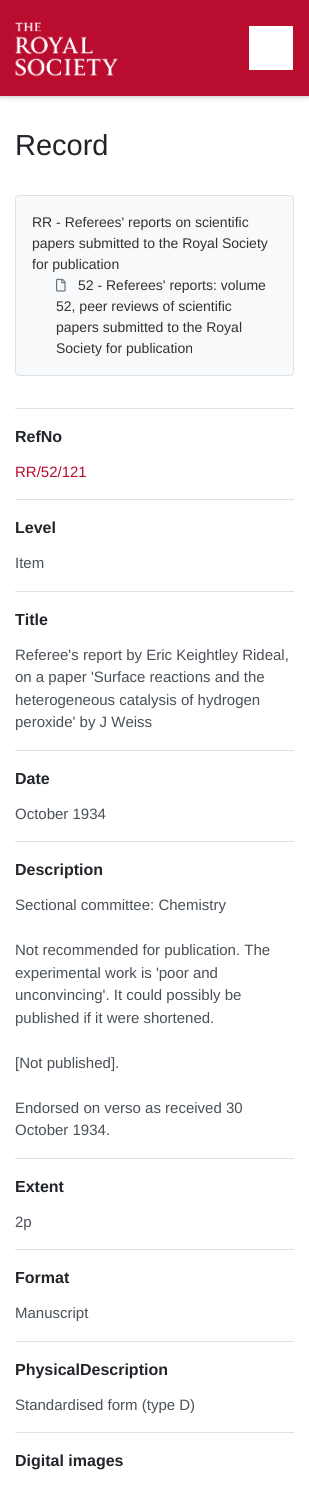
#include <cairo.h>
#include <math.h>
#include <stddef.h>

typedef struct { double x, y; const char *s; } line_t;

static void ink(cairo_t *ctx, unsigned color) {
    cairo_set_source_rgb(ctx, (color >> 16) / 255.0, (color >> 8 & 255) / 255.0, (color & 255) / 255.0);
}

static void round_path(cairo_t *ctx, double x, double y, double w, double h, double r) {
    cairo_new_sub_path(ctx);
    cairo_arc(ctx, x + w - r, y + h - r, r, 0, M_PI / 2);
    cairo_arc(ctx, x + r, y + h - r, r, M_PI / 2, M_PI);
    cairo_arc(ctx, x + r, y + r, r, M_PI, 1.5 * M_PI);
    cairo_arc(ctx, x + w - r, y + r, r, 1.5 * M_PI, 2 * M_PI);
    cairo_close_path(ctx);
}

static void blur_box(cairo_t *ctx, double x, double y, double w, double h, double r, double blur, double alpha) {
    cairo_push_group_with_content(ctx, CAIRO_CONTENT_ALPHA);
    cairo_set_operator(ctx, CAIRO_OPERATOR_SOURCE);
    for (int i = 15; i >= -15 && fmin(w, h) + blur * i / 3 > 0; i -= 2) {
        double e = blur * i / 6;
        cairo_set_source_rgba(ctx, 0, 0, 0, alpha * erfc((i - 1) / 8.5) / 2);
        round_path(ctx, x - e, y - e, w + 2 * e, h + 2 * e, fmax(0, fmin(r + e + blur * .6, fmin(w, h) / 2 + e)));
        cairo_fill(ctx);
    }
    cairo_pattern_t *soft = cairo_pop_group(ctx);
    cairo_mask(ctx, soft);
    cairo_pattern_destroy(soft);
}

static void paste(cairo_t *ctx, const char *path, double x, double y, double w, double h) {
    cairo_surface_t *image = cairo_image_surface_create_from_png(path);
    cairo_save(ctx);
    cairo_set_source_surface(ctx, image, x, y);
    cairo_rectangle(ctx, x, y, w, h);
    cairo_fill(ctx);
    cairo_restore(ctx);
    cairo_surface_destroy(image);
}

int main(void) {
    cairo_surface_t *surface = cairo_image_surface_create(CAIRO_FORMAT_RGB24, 309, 1486);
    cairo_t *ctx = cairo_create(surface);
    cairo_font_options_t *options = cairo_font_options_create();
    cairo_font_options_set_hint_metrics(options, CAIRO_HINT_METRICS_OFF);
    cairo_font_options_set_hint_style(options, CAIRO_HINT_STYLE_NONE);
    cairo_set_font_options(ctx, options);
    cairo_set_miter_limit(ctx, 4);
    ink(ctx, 0xFFFFFF);
    cairo_paint(ctx);
    ink(ctx, 0x000000);
    blur_box(ctx, 0, 0, 309, 96, 0, 3, 0.3);
    ink(ctx, 0xBA0C2F);
    cairo_rectangle(ctx, 0, 0, 309, 96);
    cairo_fill(ctx);
    paste(ctx, "media/1.png", 14, 22, 105, 55);
    ink(ctx, 0xFFFFFF);
    cairo_rectangle(ctx, 249, 26, 44, 44);
    cairo_fill(ctx);
    cairo_select_font_face(ctx, "Liberation Sans", CAIRO_FONT_SLANT_NORMAL, CAIRO_FONT_WEIGHT_NORMAL);
    cairo_set_font_size(ctx, 29);
    ink(ctx, 0x212529);
    cairo_move_to(ctx, 15, 155);
    cairo_show_text(ctx, "Record");
    ink(ctx, 0xF8F9FA);
    round_path(ctx, 15.5, 195.5, 278, 180, 3.5);
    cairo_fill_preserve(ctx);
    ink(ctx, 0xDEE2E6);
    cairo_set_line_width(ctx, 1);
    cairo_stroke(ctx);
    cairo_set_font_size(ctx, 14);
    ink(ctx, 0x333132);
    {
        static const line_t items[] = {
            {32, 227, "RR - Referees' reports on scientific"},
            {32, 248, "papers submitted to the Royal Society"},
            {32, 269, "for publication"},
        };
        for (size_t i = 0; i < sizeof items / sizeof *items; i++) {
            cairo_move_to(ctx, items[i].x, items[i].y);
            cairo_show_text(ctx, items[i].s);
        }
    }
    paste(ctx, "media/2.png", 56, 278, 10, 14);
    {
        static const line_t items[] = {
            {78, 290, "52 - Referees' reports: volume"},
            {56, 311, "52, peer reviews of scientific"},
            {56, 332, "papers submitted to the Royal"},
            {56, 353, "Society for publication"},
        };
        for (size_t i = 0; i < sizeof items / sizeof *items; i++) {
            cairo_move_to(ctx, items[i].x, items[i].y);
            cairo_show_text(ctx, items[i].s);
        }
    }
    ink(ctx, 0xDEE2E6);
    cairo_rectangle(ctx, 15, 408, 279, 1);
    cairo_fill(ctx);
    cairo_select_font_face(ctx, "Liberation Sans", CAIRO_FONT_SLANT_NORMAL, CAIRO_FONT_WEIGHT_BOLD);
    cairo_set_font_size(ctx, 16);
    ink(ctx, 0x212529);
    cairo_move_to(ctx, 15, 442);
    cairo_show_text(ctx, "RefNo");
    cairo_select_font_face(ctx, "Liberation Sans", CAIRO_FONT_SLANT_NORMAL, CAIRO_FONT_WEIGHT_NORMAL);
    cairo_set_font_size(ctx, 15);
    ink(ctx, 0xBA0C2F);
    cairo_move_to(ctx, 15, 477);
    cairo_show_text(ctx, "RR/52/121");
    ink(ctx, 0xDEE2E6);
    cairo_rectangle(ctx, 15, 499, 279, 1);
    cairo_fill(ctx);
    cairo_select_font_face(ctx, "Liberation Sans", CAIRO_FONT_SLANT_NORMAL, CAIRO_FONT_WEIGHT_BOLD);
    cairo_set_font_size(ctx, 16);
    ink(ctx, 0x212529);
    cairo_move_to(ctx, 15, 533);
    cairo_show_text(ctx, "Level");
    cairo_select_font_face(ctx, "Liberation Sans", CAIRO_FONT_SLANT_NORMAL, CAIRO_FONT_WEIGHT_NORMAL);
    cairo_set_font_size(ctx, 15);
    ink(ctx, 0x495057);
    cairo_move_to(ctx, 15, 568);
    cairo_show_text(ctx, "Item");
    ink(ctx, 0xDEE2E6);
    cairo_rectangle(ctx, 15, 591, 279, 1);
    cairo_fill(ctx);
    cairo_select_font_face(ctx, "Liberation Sans", CAIRO_FONT_SLANT_NORMAL, CAIRO_FONT_WEIGHT_BOLD);
    cairo_set_font_size(ctx, 16);
    ink(ctx, 0x212529);
    cairo_move_to(ctx, 15, 625);
    cairo_show_text(ctx, "Title");
    cairo_select_font_face(ctx, "Liberation Sans", CAIRO_FONT_SLANT_NORMAL, CAIRO_FONT_WEIGHT_NORMAL);
    cairo_set_font_size(ctx, 15);
    ink(ctx, 0x495057);
    {
        static const line_t items[] = {
            {15, 660, "Referee's report by Eric Keightley Rideal,"},
            {15, 682, "on a paper 'Surface reactions and the"},
            {15, 705, "heterogeneous catalysis of hydrogen"},
            {15, 727, "peroxide' by J Weiss"},
        };
        for (size_t i = 0; i < sizeof items / sizeof *items; i++) {
            cairo_move_to(ctx, items[i].x, items[i].y);
            cairo_show_text(ctx, items[i].s);
        }
    }
    ink(ctx, 0xDEE2E6);
    cairo_rectangle(ctx, 15, 750, 279, 1);
    cairo_fill(ctx);
    cairo_select_font_face(ctx, "Liberation Sans", CAIRO_FONT_SLANT_NORMAL, CAIRO_FONT_WEIGHT_BOLD);
    cairo_set_font_size(ctx, 16);
    ink(ctx, 0x212529);
    cairo_move_to(ctx, 15, 784);
    cairo_show_text(ctx, "Date");
    cairo_select_font_face(ctx, "Liberation Sans", CAIRO_FONT_SLANT_NORMAL, CAIRO_FONT_WEIGHT_NORMAL);
    cairo_set_font_size(ctx, 15);
    ink(ctx, 0x495057);
    cairo_move_to(ctx, 15, 819);
    cairo_show_text(ctx, "October 1934");
    ink(ctx, 0xDEE2E6);
    cairo_rectangle(ctx, 15, 841, 279, 1);
    cairo_fill(ctx);
    cairo_select_font_face(ctx, "Liberation Sans", CAIRO_FONT_SLANT_NORMAL, CAIRO_FONT_WEIGHT_BOLD);
    cairo_set_font_size(ctx, 16);
    ink(ctx, 0x212529);
    cairo_move_to(ctx, 15, 875);
    cairo_show_text(ctx, "Description");
    cairo_select_font_face(ctx, "Liberation Sans", CAIRO_FONT_SLANT_NORMAL, CAIRO_FONT_WEIGHT_NORMAL);
    cairo_set_font_size(ctx, 15);
    ink(ctx, 0x495057);
    {
        static const line_t items[] = {
            {15, 910, "Sectional committee: Chemistry"},
            {15, 955, "Not recommended for publication. The"},
            {15, 978, "experimental work is 'poor and"},
            {15, 1000, "unconvincing'. It could possibly be"},
            {15, 1023, "published if it were shortened."},
            {15, 1068, "[Not published]."},
            {15, 1113, "Endorsed on verso as received 30"},
            {15, 1135, "October 1934."},
        };
        for (size_t i = 0; i < sizeof items / sizeof *items; i++) {
            cairo_move_to(ctx, items[i].x, items[i].y);
            cairo_show_text(ctx, items[i].s);
        }
    }
    ink(ctx, 0xDEE2E6);
    cairo_rectangle(ctx, 15, 1158, 279, 1);
    cairo_fill(ctx);
    cairo_select_font_face(ctx, "Liberation Sans", CAIRO_FONT_SLANT_NORMAL, CAIRO_FONT_WEIGHT_BOLD);
    cairo_set_font_size(ctx, 16);
    ink(ctx, 0x212529);
    cairo_move_to(ctx, 15, 1192);
    cairo_show_text(ctx, "Extent");
    cairo_select_font_face(ctx, "Liberation Sans", CAIRO_FONT_SLANT_NORMAL, CAIRO_FONT_WEIGHT_NORMAL);
    cairo_set_font_size(ctx, 15);
    ink(ctx, 0x495057);
    cairo_move_to(ctx, 15, 1227);
    cairo_show_text(ctx, "2p");
    ink(ctx, 0xDEE2E6);
    cairo_rectangle(ctx, 15, 1249, 279, 1);
    cairo_fill(ctx);
    cairo_select_font_face(ctx, "Liberation Sans", CAIRO_FONT_SLANT_NORMAL, CAIRO_FONT_WEIGHT_BOLD);
    cairo_set_font_size(ctx, 16);
    ink(ctx, 0x212529);
    cairo_move_to(ctx, 15, 1283);
    cairo_show_text(ctx, "Format");
    cairo_select_font_face(ctx, "Liberation Sans", CAIRO_FONT_SLANT_NORMAL, CAIRO_FONT_WEIGHT_NORMAL);
    cairo_set_font_size(ctx, 15);
    ink(ctx, 0x495057);
    cairo_move_to(ctx, 15, 1318);
    cairo_show_text(ctx, "Manuscript");
    ink(ctx, 0xDEE2E6);
    cairo_rectangle(ctx, 15, 1341, 279, 1);
    cairo_fill(ctx);
    cairo_select_font_face(ctx, "Liberation Sans", CAIRO_FONT_SLANT_NORMAL, CAIRO_FONT_WEIGHT_BOLD);
    cairo_set_font_size(ctx, 16);
    ink(ctx, 0x212529);
    cairo_move_to(ctx, 15, 1375);
    cairo_show_text(ctx, "PhysicalDescription");
    cairo_select_font_face(ctx, "Liberation Sans", CAIRO_FONT_SLANT_NORMAL, CAIRO_FONT_WEIGHT_NORMAL);
    cairo_set_font_size(ctx, 15);
    ink(ctx, 0x495057);
    cairo_move_to(ctx, 15, 1410);
    cairo_show_text(ctx, "Standardised form (type D)");
    ink(ctx, 0xDEE2E6);
    cairo_rectangle(ctx, 15, 1432, 279, 1);
    cairo_fill(ctx);
    cairo_select_font_face(ctx, "Liberation Sans", CAIRO_FONT_SLANT_NORMAL, CAIRO_FONT_WEIGHT_BOLD);
    cairo_set_font_size(ctx, 16);
    ink(ctx, 0x212529);
    cairo_move_to(ctx, 15, 1466);
    cairo_show_text(ctx, "Digital images");
    cairo_surface_write_to_png(surface, "image.png");
    cairo_font_options_destroy(options);
    cairo_destroy(ctx);
    cairo_surface_destroy(surface);
    return 0;
}
